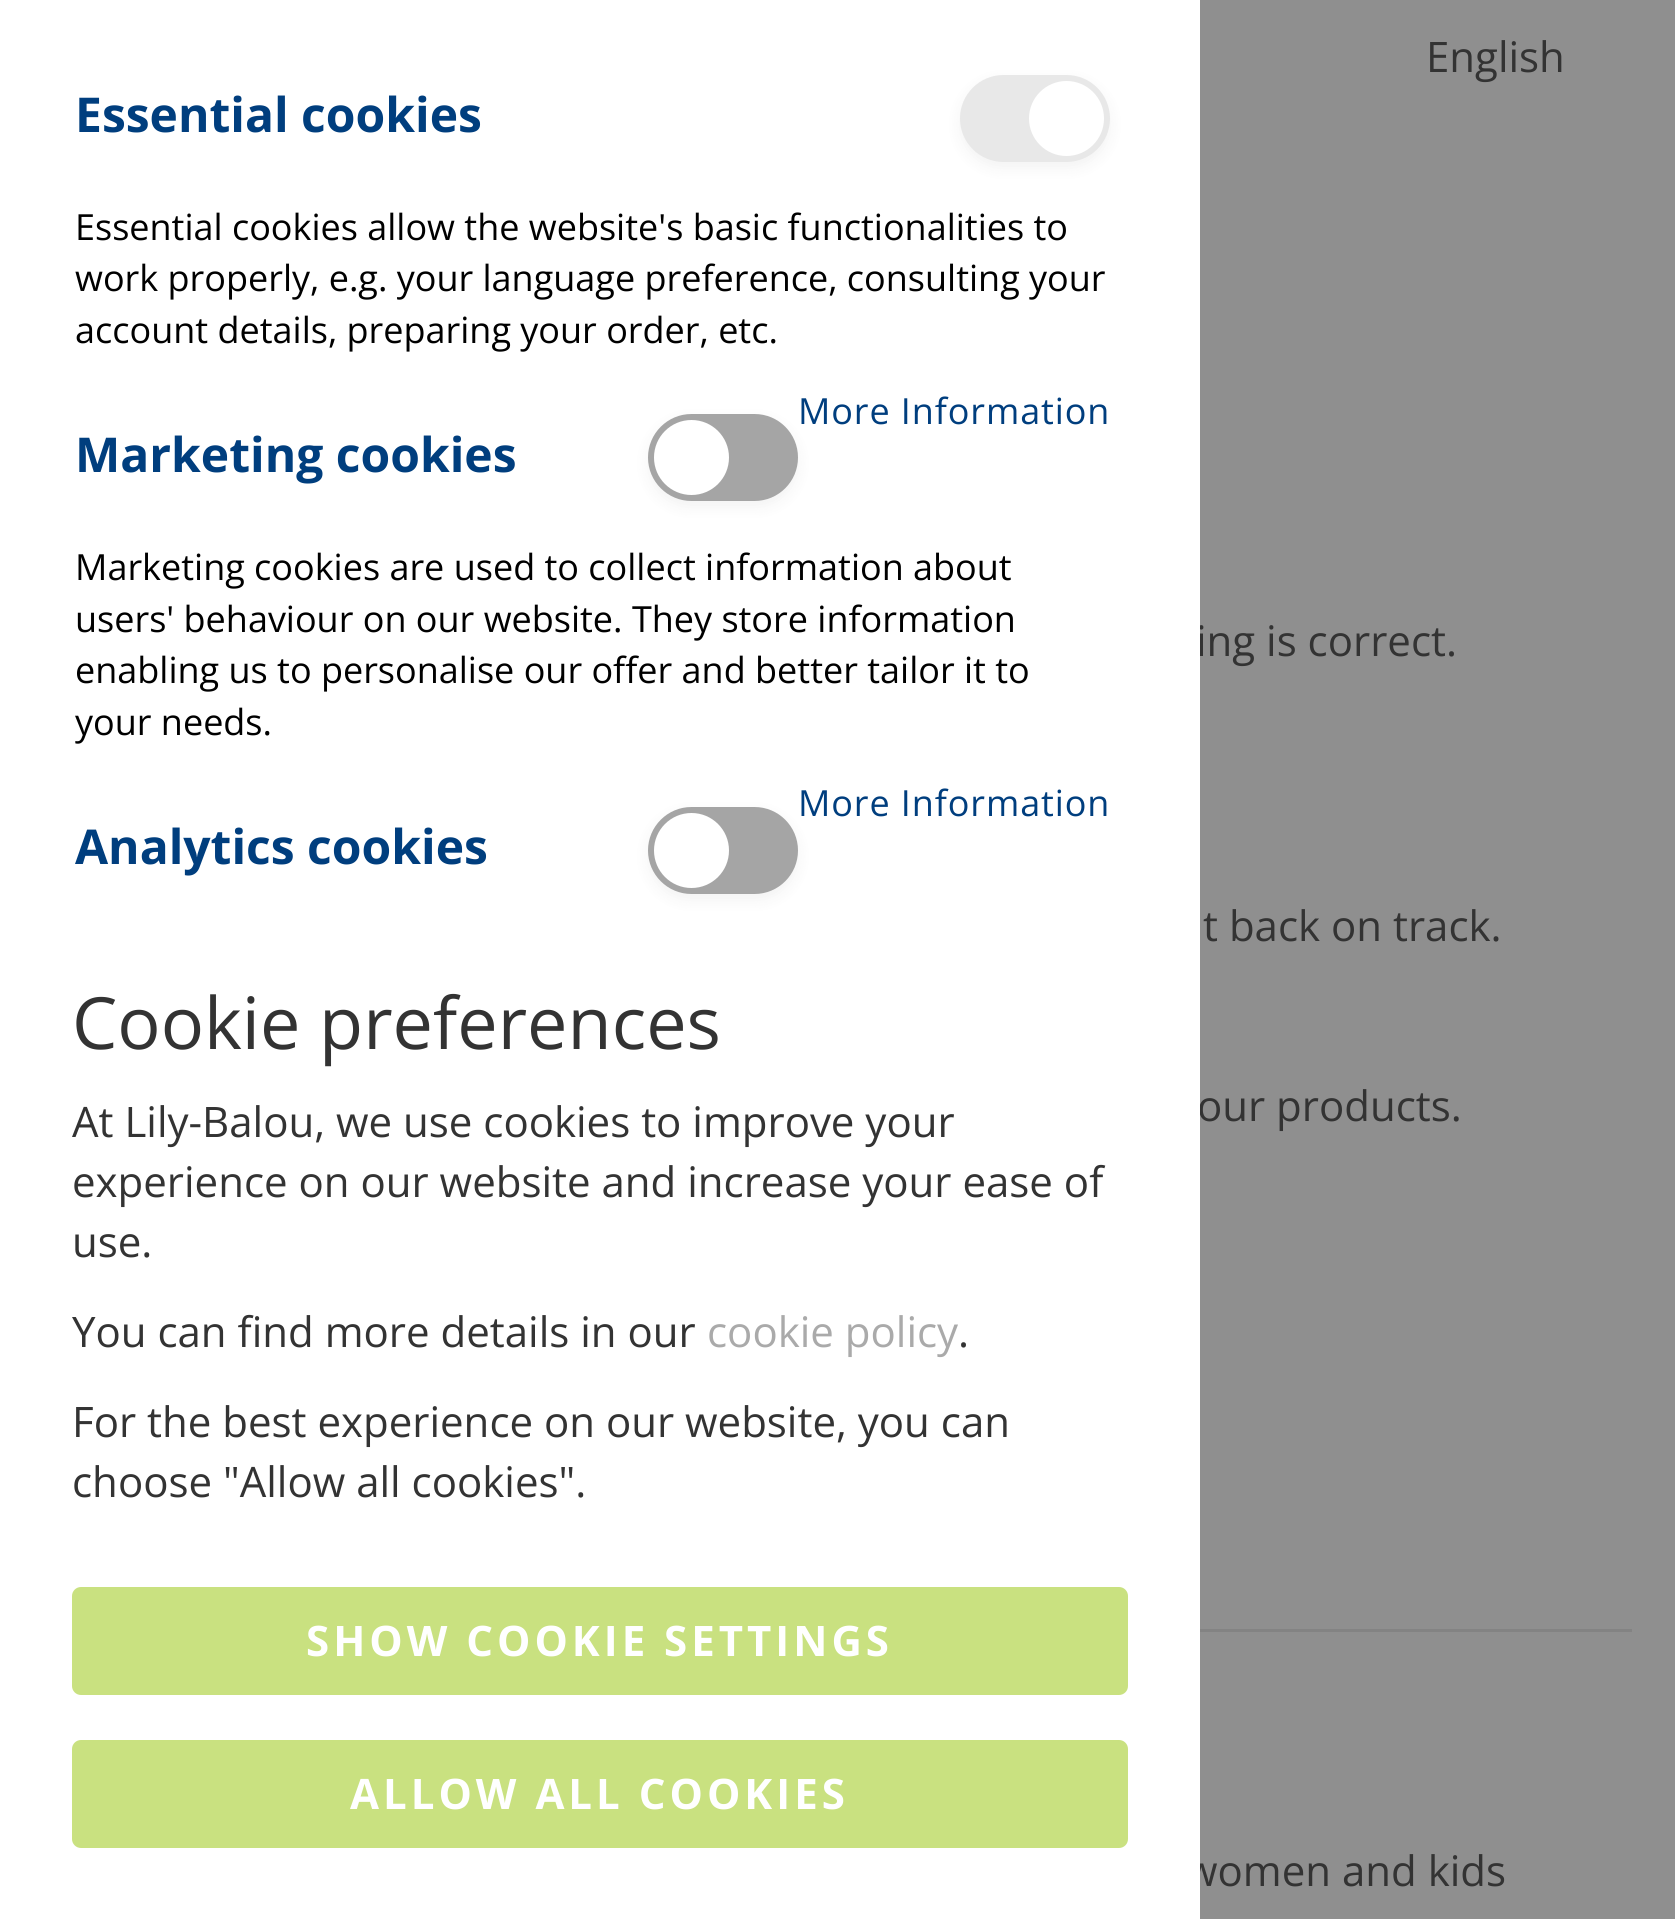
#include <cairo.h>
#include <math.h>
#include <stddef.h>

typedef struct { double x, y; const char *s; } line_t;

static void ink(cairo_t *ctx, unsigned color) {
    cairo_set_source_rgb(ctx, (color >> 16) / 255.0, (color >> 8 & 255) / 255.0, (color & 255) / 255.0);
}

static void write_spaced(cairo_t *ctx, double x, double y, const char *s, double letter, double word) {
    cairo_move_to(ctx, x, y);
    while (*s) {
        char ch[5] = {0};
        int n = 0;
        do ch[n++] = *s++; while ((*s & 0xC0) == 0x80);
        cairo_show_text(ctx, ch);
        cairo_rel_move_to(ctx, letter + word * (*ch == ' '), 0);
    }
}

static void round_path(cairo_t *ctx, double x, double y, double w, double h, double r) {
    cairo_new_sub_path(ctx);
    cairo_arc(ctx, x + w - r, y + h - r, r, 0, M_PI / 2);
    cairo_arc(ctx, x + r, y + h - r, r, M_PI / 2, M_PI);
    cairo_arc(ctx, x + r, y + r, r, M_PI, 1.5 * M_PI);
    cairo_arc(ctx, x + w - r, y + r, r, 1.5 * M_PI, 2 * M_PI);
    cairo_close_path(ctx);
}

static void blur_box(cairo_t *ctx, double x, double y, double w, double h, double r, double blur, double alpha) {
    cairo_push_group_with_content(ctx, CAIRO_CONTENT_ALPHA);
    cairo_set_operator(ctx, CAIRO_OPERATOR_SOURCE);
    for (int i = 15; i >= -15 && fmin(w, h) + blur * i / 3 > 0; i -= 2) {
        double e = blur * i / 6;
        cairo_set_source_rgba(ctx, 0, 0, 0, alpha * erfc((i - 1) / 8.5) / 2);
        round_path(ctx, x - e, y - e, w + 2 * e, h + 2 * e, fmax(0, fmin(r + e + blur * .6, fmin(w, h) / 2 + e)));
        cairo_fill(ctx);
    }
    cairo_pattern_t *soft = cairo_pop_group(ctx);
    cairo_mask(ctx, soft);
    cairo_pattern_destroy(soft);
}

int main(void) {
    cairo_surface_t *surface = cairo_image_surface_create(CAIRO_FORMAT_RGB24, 1675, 1919);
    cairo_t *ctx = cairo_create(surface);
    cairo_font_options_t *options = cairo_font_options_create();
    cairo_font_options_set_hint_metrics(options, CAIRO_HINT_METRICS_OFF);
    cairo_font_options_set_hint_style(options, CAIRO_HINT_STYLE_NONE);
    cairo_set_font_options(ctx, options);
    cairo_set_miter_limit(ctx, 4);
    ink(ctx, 0x8F8F8F);
    cairo_paint(ctx);
    cairo_select_font_face(ctx, "Open Sans", CAIRO_FONT_SLANT_NORMAL, CAIRO_FONT_WEIGHT_NORMAL);
    cairo_set_font_size(ctx, 42);
    ink(ctx, 0x333333);
    {
        static const line_t items[] = {
            {1196, 656, "ing is correct."},
            {1197, 1121, "our products."},
            {1185, 1886, "women and kids"},
        };
        for (size_t i = 0; i < sizeof items / sizeof *items; i++) {
            cairo_move_to(ctx, items[i].x, items[i].y);
            cairo_show_text(ctx, items[i].s);
        }
    }
    ink(ctx, 0xFFFFFF);
    cairo_rectangle(ctx, 0, 0, 1200, 1919);
    cairo_fill(ctx);
    cairo_select_font_face(ctx, "Open Sans", CAIRO_FONT_SLANT_NORMAL, CAIRO_FONT_WEIGHT_BOLD);
    cairo_set_font_size(ctx, 48);
    ink(ctx, 0x003E7E);
    cairo_move_to(ctx, 75, 132);
    cairo_show_text(ctx, "Essential cookies");
    ink(ctx, 0x000000);
    blur_box(ctx, 960, 81, 150, 87, 43.5, 7.5, 0.05);
    ink(ctx, 0xE8E8E8);
    round_path(ctx, 960, 75, 150, 87, 43.5);
    cairo_fill(ctx);
    ink(ctx, 0xFFFFFF);
    cairo_arc(ctx, 1066.5, 118.5, 37.5, 0, 2 * M_PI);
    cairo_fill(ctx);
    cairo_select_font_face(ctx, "Open Sans", CAIRO_FONT_SLANT_NORMAL, CAIRO_FONT_WEIGHT_NORMAL);
    cairo_set_font_size(ctx, 36);
    ink(ctx, 0x000000);
    {
        static const line_t items[] = {
            {75, 240, "Essential cookies allow the website's basic functionalities to"},
            {75, 291, "work properly, e.g. your language preference, consulting your"},
            {75, 343, "account details, preparing your order, etc."},
        };
        for (size_t i = 0; i < sizeof items / sizeof *items; i++) {
            cairo_move_to(ctx, items[i].x, items[i].y);
            cairo_show_text(ctx, items[i].s);
        }
    }
    ink(ctx, 0x003E7E);
    write_spaced(ctx, 798, 424, "More Information", 0.9, 0);
    cairo_select_font_face(ctx, "Open Sans", CAIRO_FONT_SLANT_NORMAL, CAIRO_FONT_WEIGHT_BOLD);
    cairo_set_font_size(ctx, 48);
    cairo_move_to(ctx, 75, 472);
    cairo_show_text(ctx, "Marketing cookies");
    ink(ctx, 0x000000);
    blur_box(ctx, 648, 420, 150, 87, 43.5, 7.5, 0.05);
    ink(ctx, 0xA5A5A5);
    round_path(ctx, 648, 414, 150, 87, 43.5);
    cairo_fill(ctx);
    ink(ctx, 0xFFFFFF);
    cairo_arc(ctx, 691.5, 457.5, 37.5, 0, 2 * M_PI);
    cairo_fill(ctx);
    cairo_select_font_face(ctx, "Open Sans", CAIRO_FONT_SLANT_NORMAL, CAIRO_FONT_WEIGHT_NORMAL);
    cairo_set_font_size(ctx, 36);
    ink(ctx, 0x000000);
    {
        static const line_t items[] = {
            {75, 580, "Marketing cookies are used to collect information about"},
            {75, 632, "users' behaviour on our website. They store information"},
            {75, 683, "enabling us to personalise our offer and better tailor it to"},
            {75, 735, "your needs."},
        };
        for (size_t i = 0; i < sizeof items / sizeof *items; i++) {
            cairo_move_to(ctx, items[i].x, items[i].y);
            cairo_show_text(ctx, items[i].s);
        }
    }
    ink(ctx, 0x003E7E);
    write_spaced(ctx, 798, 816, "More Information", 0.9, 0);
    cairo_select_font_face(ctx, "Open Sans", CAIRO_FONT_SLANT_NORMAL, CAIRO_FONT_WEIGHT_BOLD);
    cairo_set_font_size(ctx, 48);
    cairo_move_to(ctx, 75, 864);
    cairo_show_text(ctx, "Analytics cookies");
    ink(ctx, 0x000000);
    blur_box(ctx, 648, 813, 150, 87, 43.5, 7.5, 0.05);
    ink(ctx, 0xA5A5A5);
    round_path(ctx, 648, 807, 150, 87, 43.5);
    cairo_fill(ctx);
    ink(ctx, 0xFFFFFF);
    cairo_arc(ctx, 691.5, 850.5, 37.5, 0, 2 * M_PI);
    cairo_fill(ctx);
    cairo_select_font_face(ctx, "Open Sans", CAIRO_FONT_SLANT_NORMAL, CAIRO_FONT_WEIGHT_NORMAL);
    cairo_set_font_size(ctx, 72);
    ink(ctx, 0x333333);
    cairo_move_to(ctx, 72, 1049);
    cairo_show_text(ctx, "Cookie preferences");
    cairo_set_font_size(ctx, 42);
    {
        static const line_t items[] = {
            {72, 1137, "At Lily-Balou, we use cookies to improve your"},
            {72, 1197, "experience on our website and increase your ease of"},
            {72, 1257, "use."},
            {72, 1347, "You can find more details in our"},
        };
        for (size_t i = 0; i < sizeof items / sizeof *items; i++) {
            cairo_move_to(ctx, items[i].x, items[i].y);
            cairo_show_text(ctx, items[i].s);
        }
    }
    ink(ctx, 0xAAAAAA);
    cairo_move_to(ctx, 707, 1347);
    cairo_show_text(ctx, "cookie policy");
    ink(ctx, 0x333333);
    {
        static const line_t items[] = {
            {958, 1347, "."},
            {72, 1437, "For the best experience on our website, you can"},
            {72, 1497, "choose \"Allow all cookies\"."},
        };
        for (size_t i = 0; i < sizeof items / sizeof *items; i++) {
            cairo_move_to(ctx, items[i].x, items[i].y);
            cairo_show_text(ctx, items[i].s);
        }
    }
    ink(ctx, 0xC9E180);
    round_path(ctx, 72, 1587, 1056, 108, 9);
    cairo_fill(ctx);
    cairo_select_font_face(ctx, "Open Sans", CAIRO_FONT_SLANT_NORMAL, CAIRO_FONT_WEIGHT_BOLD);
    ink(ctx, 0xFFFFFF);
    write_spaced(ctx, 306, 1656, "SHOW COOKIE SETTINGS", 4, 0);
    ink(ctx, 0xC9E180);
    round_path(ctx, 72, 1740, 1056, 108, 9);
    cairo_fill(ctx);
    ink(ctx, 0xFFFFFF);
    write_spaced(ctx, 350, 1809, "ALLOW ALL COOKIES", 4, 0);
    cairo_select_font_face(ctx, "Open Sans", CAIRO_FONT_SLANT_NORMAL, CAIRO_FONT_WEIGHT_NORMAL);
    ink(ctx, 0x333333);
    cairo_move_to(ctx, 1426, 72);
    cairo_show_text(ctx, "English");
    cairo_move_to(ctx, 1203, 941);
    cairo_show_text(ctx, "t back on track.");
    ink(ctx, 0x838383);
    cairo_rectangle(ctx, 1200, 1629, 432, 3);
    cairo_fill(ctx);
    cairo_surface_write_to_png(surface, "image.png");
    cairo_font_options_destroy(options);
    cairo_destroy(ctx);
    cairo_surface_destroy(surface);
    return 0;
}
